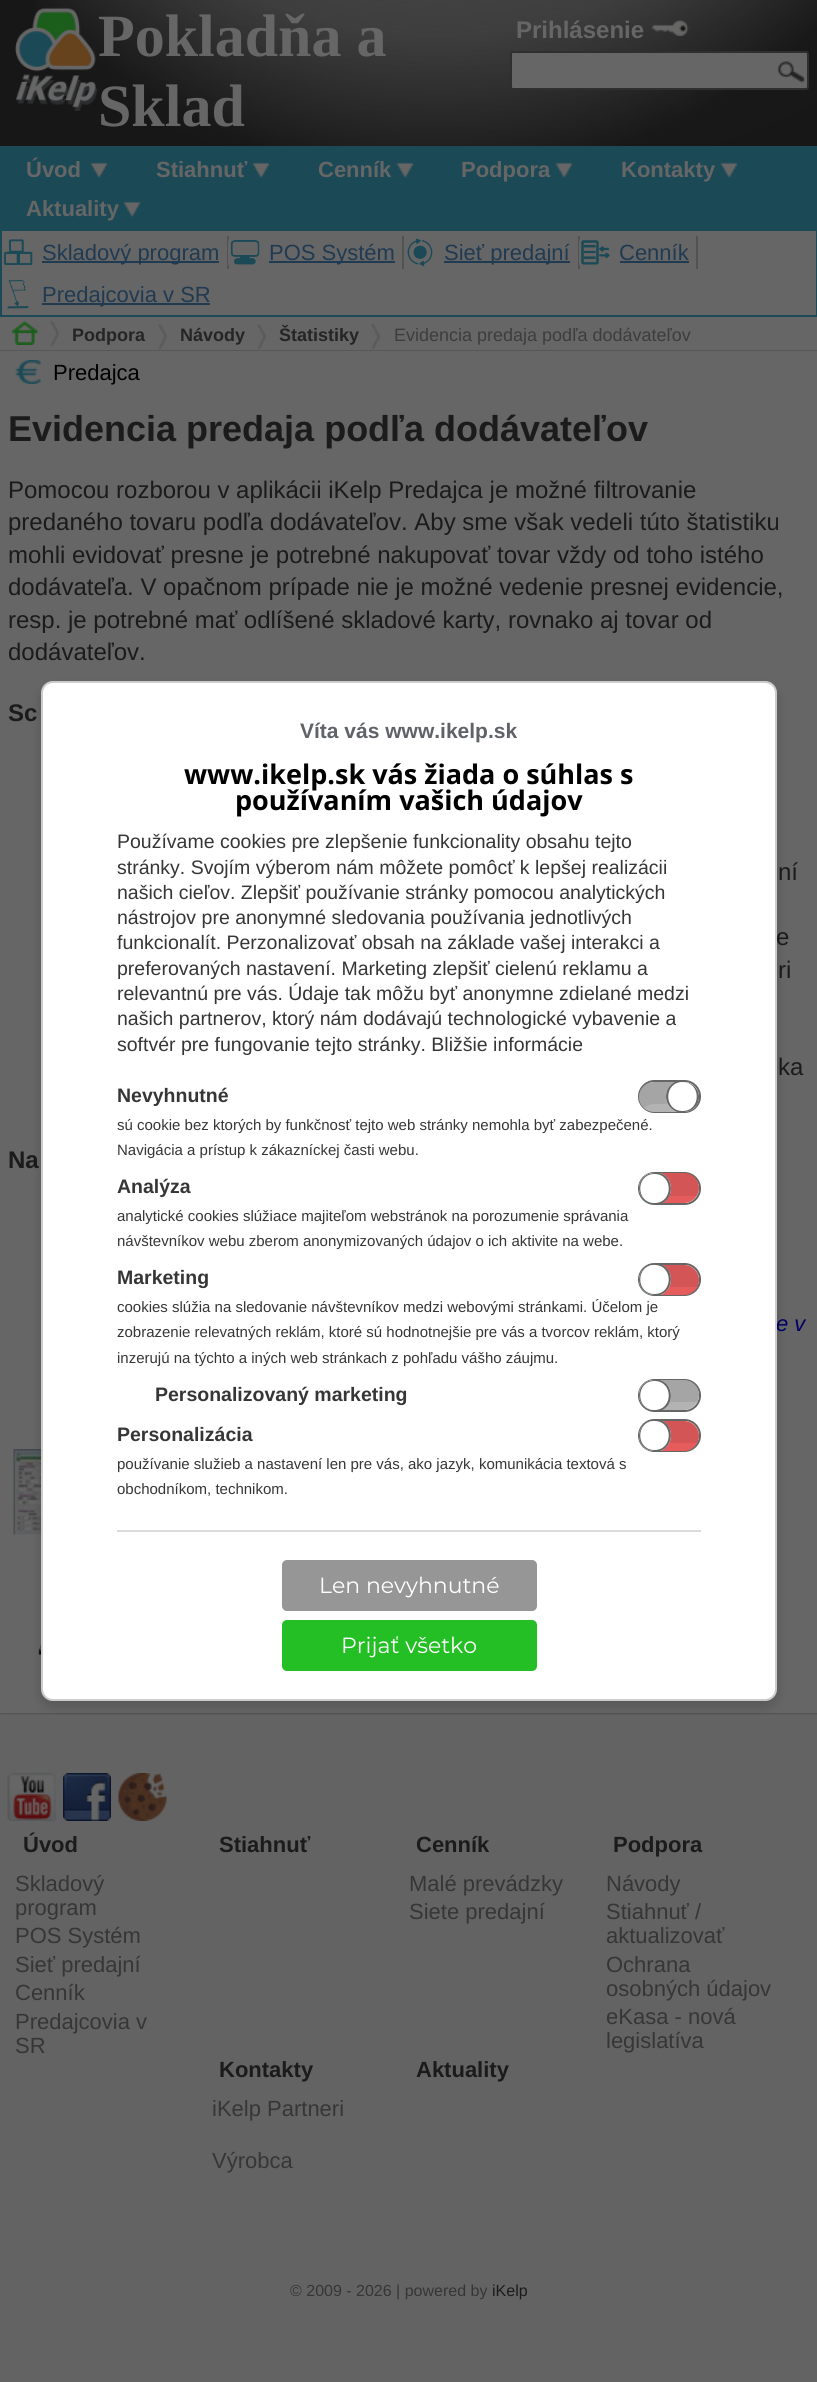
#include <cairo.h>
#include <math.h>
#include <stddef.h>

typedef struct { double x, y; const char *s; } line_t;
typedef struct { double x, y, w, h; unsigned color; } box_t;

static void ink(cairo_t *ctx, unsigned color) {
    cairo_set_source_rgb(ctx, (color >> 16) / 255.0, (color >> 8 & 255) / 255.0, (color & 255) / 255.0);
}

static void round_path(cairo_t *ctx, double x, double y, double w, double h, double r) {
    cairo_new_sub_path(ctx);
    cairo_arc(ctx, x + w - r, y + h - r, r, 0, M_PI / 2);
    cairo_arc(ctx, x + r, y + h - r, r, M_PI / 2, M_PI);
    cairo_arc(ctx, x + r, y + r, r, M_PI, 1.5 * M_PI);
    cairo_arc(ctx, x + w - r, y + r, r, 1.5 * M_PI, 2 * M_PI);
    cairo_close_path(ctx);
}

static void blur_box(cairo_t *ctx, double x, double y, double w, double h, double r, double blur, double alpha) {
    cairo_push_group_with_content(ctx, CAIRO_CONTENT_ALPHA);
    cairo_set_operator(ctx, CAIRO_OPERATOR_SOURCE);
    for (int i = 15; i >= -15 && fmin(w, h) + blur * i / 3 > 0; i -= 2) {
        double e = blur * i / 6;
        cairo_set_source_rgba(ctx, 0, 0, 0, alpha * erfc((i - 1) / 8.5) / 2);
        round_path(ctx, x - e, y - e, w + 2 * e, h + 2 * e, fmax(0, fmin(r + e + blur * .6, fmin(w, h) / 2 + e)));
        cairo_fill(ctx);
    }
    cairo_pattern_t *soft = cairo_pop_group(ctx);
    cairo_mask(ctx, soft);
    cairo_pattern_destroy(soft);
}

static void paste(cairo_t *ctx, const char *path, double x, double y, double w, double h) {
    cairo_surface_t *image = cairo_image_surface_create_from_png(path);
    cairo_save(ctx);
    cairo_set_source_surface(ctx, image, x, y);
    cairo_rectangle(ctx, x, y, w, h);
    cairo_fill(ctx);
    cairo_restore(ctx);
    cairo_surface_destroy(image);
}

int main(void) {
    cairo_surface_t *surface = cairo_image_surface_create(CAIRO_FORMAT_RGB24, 817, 2382);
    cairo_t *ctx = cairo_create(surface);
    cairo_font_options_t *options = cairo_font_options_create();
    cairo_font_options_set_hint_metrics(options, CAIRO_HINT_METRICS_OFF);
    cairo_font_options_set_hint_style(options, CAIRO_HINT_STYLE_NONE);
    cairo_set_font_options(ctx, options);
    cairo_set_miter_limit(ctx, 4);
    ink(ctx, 0x636363);
    cairo_paint(ctx);
    ink(ctx, 0x171717);
    cairo_rectangle(ctx, 0, 0, 817, 146);
    cairo_fill(ctx);
    paste(ctx, "media/1.png", 35, 0, 782, 146);
    paste(ctx, "media/2.png", 15, 7, 83, 104);
    cairo_select_font_face(ctx, "Liberation Serif", CAIRO_FONT_SLANT_NORMAL, CAIRO_FONT_WEIGHT_BOLD);
    cairo_set_font_size(ctx, 60);
    ink(ctx, 0x666666);
    cairo_move_to(ctx, 98, 56);
    cairo_show_text(ctx, "Pokladňa a");
    cairo_move_to(ctx, 98, 126);
    cairo_show_text(ctx, "Sklad");
    paste(ctx, "media/3.png", 651, 19, 38, 17);
    cairo_select_font_face(ctx, "Liberation Sans", CAIRO_FONT_SLANT_NORMAL, CAIRO_FONT_WEIGHT_BOLD);
    cairo_set_font_size(ctx, 24);
    cairo_move_to(ctx, 516, 38);
    cairo_show_text(ctx, "Prihlásenie");
    round_path(ctx, 511, 52, 297, 37, 2);
    cairo_fill_preserve(ctx);
    ink(ctx, 0x2F2F2F);
    cairo_stroke(ctx);
    paste(ctx, "media/4.png", 777, 61, 28, 22);
    ink(ctx, 0x363636);
    blur_box(ctx, 0, 231, 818, 1482, 0, 1, 1);
    ink(ctx, 0x1B4956);
    cairo_rectangle(ctx, 0, 146, 817, 85);
    cairo_fill(ctx);
    paste(ctx, "media/5.png", 90, 162, 19, 17);
    cairo_set_font_size(ctx, 22);
    ink(ctx, 0x666666);
    cairo_move_to(ctx, 26, 177);
    cairo_show_text(ctx, "Úvod");
    paste(ctx, "media/5.png", 252, 162, 19, 17);
    cairo_move_to(ctx, 156, 177);
    cairo_show_text(ctx, "Stiahnuť");
    paste(ctx, "media/6.png", 396, 162, 19, 17);
    cairo_move_to(ctx, 318, 177);
    cairo_show_text(ctx, "Cenník");
    paste(ctx, "media/5.png", 555, 162, 19, 17);
    cairo_move_to(ctx, 461, 177);
    cairo_show_text(ctx, "Podpora");
    paste(ctx, "media/6.png", 720, 162, 19, 17);
    cairo_move_to(ctx, 621, 177);
    cairo_show_text(ctx, "Kontakty");
    paste(ctx, "media/5.png", 123, 201, 19, 17);
    cairo_move_to(ctx, 26, 216);
    cairo_show_text(ctx, "Aktuality");
    {
        static const box_t items[] = {
            {0, 231, 817, 1482, 0x666666},
            {816, 231, 1, 86, 0x1B4956},
            {0, 315, 817, 2, 0x1B4956},
            {0, 231, 2, 86, 0x1B4956},
        };
        for (size_t i = 0; i < sizeof items / sizeof *items; i++) {
            ink(ctx, items[i].color);
            cairo_rectangle(ctx, items[i].x, items[i].y, items[i].w, items[i].h);
            cairo_fill(ctx);
        }
    }
    paste(ctx, "media/7.png", 3, 239, 30, 26);
    ink(ctx, 0x525252);
    cairo_rectangle(ctx, 227, 236, 2, 33);
    cairo_fill(ctx);
    ink(ctx, 0x203A52);
    cairo_rectangle(ctx, 42, 261, 177, 2);
    cairo_fill(ctx);
    cairo_select_font_face(ctx, "Liberation Sans", CAIRO_FONT_SLANT_NORMAL, CAIRO_FONT_WEIGHT_NORMAL);
    cairo_move_to(ctx, 42, 260);
    cairo_show_text(ctx, "Skladový program");
    ink(ctx, 0x666666);
    round_path(ctx, 228, 236, 33, 33, 6);
    cairo_fill(ctx);
    paste(ctx, "media/8.png", 230, 240, 30, 25);
    ink(ctx, 0x525252);
    cairo_rectangle(ctx, 402, 236, 2, 33);
    cairo_fill(ctx);
    ink(ctx, 0x203A52);
    cairo_rectangle(ctx, 269, 261, 126, 2);
    cairo_fill(ctx);
    cairo_move_to(ctx, 269, 260);
    cairo_show_text(ctx, "POS Systém");
    paste(ctx, "media/9.png", 407, 238, 26, 29);
    ink(ctx, 0x525252);
    cairo_rectangle(ctx, 578, 236, 2, 33);
    cairo_fill(ctx);
    ink(ctx, 0x203A52);
    cairo_rectangle(ctx, 444, 261, 126, 2);
    cairo_fill(ctx);
    cairo_move_to(ctx, 444, 260);
    cairo_show_text(ctx, "Sieť predajní");
    ink(ctx, 0x666666);
    round_path(ctx, 579, 236, 33, 33, 6);
    cairo_fill(ctx);
    paste(ctx, "media/10.png", 581, 240, 29, 25);
    ink(ctx, 0x525252);
    cairo_rectangle(ctx, 696, 236, 2, 33);
    cairo_fill(ctx);
    ink(ctx, 0x203A52);
    cairo_move_to(ctx, 619, 260);
    cairo_show_text(ctx, "Cenník");
    cairo_rectangle(ctx, 620, 261, 69, 2);
    cairo_fill(ctx);
    paste(ctx, "media/11.png", 7, 279, 22, 30);
    cairo_rectangle(ctx, 42, 303, 168, 2);
    cairo_fill(ctx);
    cairo_move_to(ctx, 42, 302);
    cairo_show_text(ctx, "Predajcovia v SR");
    ink(ctx, 0x575757);
    cairo_rectangle(ctx, 0, 350, 817, 1);
    cairo_fill(ctx);
    paste(ctx, "media/12.png", 50, 321, 10, 26);
    paste(ctx, "media/13.png", 12, 321, 26, 24);
    paste(ctx, "media/12.png", 158, 324, 10, 26);
    cairo_select_font_face(ctx, "Liberation Sans", CAIRO_FONT_SLANT_NORMAL, CAIRO_FONT_WEIGHT_BOLD);
    cairo_set_font_size(ctx, 18);
    ink(ctx, 0x252525);
    cairo_move_to(ctx, 72, 341);
    cairo_show_text(ctx, "Podpora");
    paste(ctx, "media/12.png", 257, 324, 10, 26);
    cairo_move_to(ctx, 180, 341);
    cairo_show_text(ctx, "Návody");
    paste(ctx, "media/14.png", 371, 324, 10, 26);
    cairo_move_to(ctx, 279, 341);
    cairo_show_text(ctx, "Štatistiky");
    cairo_select_font_face(ctx, "Liberation Sans", CAIRO_FONT_SLANT_NORMAL, CAIRO_FONT_WEIGHT_NORMAL);
    ink(ctx, 0x3D3D3D);
    cairo_move_to(ctx, 394, 341);
    cairo_show_text(ctx, "Evidencia predaja podľa dodávateľov");
    paste(ctx, "media/15.png", 15, 360, 26, 24);
    cairo_set_font_size(ctx, 22);
    ink(ctx, 0x000000);
    cairo_move_to(ctx, 53, 380);
    cairo_show_text(ctx, "Predajca");
    cairo_select_font_face(ctx, "Liberation Sans", CAIRO_FONT_SLANT_NORMAL, CAIRO_FONT_WEIGHT_BOLD);
    cairo_set_font_size(ctx, 36);
    ink(ctx, 0x1B1B1B);
    cairo_move_to(ctx, 8, 441);
    cairo_show_text(ctx, "Evidencia predaja podľa dodávateľov");
    cairo_select_font_face(ctx, "Liberation Sans", CAIRO_FONT_SLANT_NORMAL, CAIRO_FONT_WEIGHT_NORMAL);
    cairo_set_font_size(ctx, 24);
    {
        static const line_t items[] = {
            {8, 498, "Pomocou rozborou v aplikácii iKelp Predajca je možné filtrovanie"},
            {8, 530, "predaného tovaru podľa dodávateľov. Aby sme však vedeli túto štatistiku"},
            {8, 563, "mohli evidovať presne je potrebné nakupovať tovar vždy od toho istého"},
            {8, 595, "dodávateľa. V opačnom prípade nie je možné vedenie presnej evidencie,"},
            {8, 628, "resp. je potrebné mať odlíšené skladové karty, rovnako aj tovar od"},
            {8, 660, "dodávateľov."},
        };
        for (size_t i = 0; i < sizeof items / sizeof *items; i++) {
            cairo_move_to(ctx, items[i].x, items[i].y);
            cairo_show_text(ctx, items[i].s);
        }
    }
    cairo_select_font_face(ctx, "Liberation Sans", CAIRO_FONT_SLANT_NORMAL, CAIRO_FONT_WEIGHT_BOLD);
    cairo_move_to(ctx, 8, 721);
    cairo_show_text(ctx, "Sc");
    cairo_select_font_face(ctx, "Liberation Sans", CAIRO_FONT_SLANT_NORMAL, CAIRO_FONT_WEIGHT_NORMAL);
    {
        static const line_t items[] = {
            {778, 880, "ní"},
            {776, 945, "e"},
            {778, 978, "ri"},
            {778, 1075, "ka"},
        };
        for (size_t i = 0; i < sizeof items / sizeof *items; i++) {
            cairo_move_to(ctx, items[i].x, items[i].y);
            cairo_show_text(ctx, items[i].s);
        }
    }
    cairo_select_font_face(ctx, "Liberation Sans", CAIRO_FONT_SLANT_NORMAL, CAIRO_FONT_WEIGHT_BOLD);
    cairo_move_to(ctx, 8, 1168);
    cairo_show_text(ctx, "Na");
    cairo_select_font_face(ctx, "Liberation Sans", CAIRO_FONT_SLANT_ITALIC, CAIRO_FONT_WEIGHT_NORMAL);
    cairo_set_font_size(ctx, 22);
    ink(ctx, 0x000066);
    cairo_move_to(ctx, 776, 1331);
    cairo_show_text(ctx, "e v");
    paste(ctx, "media/16.png", 13, 1449, 28, 86);
    paste(ctx, "media/17.png", 38, 1645, 3, 10);
    ink(ctx, 0x000000);
    blur_box(ctx, 41, 687, 736, 1020, 12, 6, 0.16);
    ink(ctx, 0xFFFFFF);
    round_path(ctx, 41, 681, 736, 1020, 12);
    cairo_fill(ctx);
    round_path(ctx, 42, 682, 734, 1018, 11);
    cairo_set_source_rgba(ctx, 0, 0, 0, 0.2);
    cairo_stroke(ctx);
    cairo_select_font_face(ctx, "Liberation Sans", CAIRO_FONT_SLANT_NORMAL, CAIRO_FONT_WEIGHT_BOLD);
    cairo_set_font_size(ctx, 21);
    ink(ctx, 0x5F6368);
    cairo_move_to(ctx, 300, 738);
    cairo_show_text(ctx, "Víta vás www.ikelp.sk");
    cairo_select_font_face(ctx, "Open Sans", CAIRO_FONT_SLANT_NORMAL, CAIRO_FONT_WEIGHT_BOLD);
    cairo_set_font_size(ctx, 27);
    ink(ctx, 0x000000);
    cairo_move_to(ctx, 184, 784);
    cairo_show_text(ctx, "www.ikelp.sk vás žiada o súhlas s");
    cairo_move_to(ctx, 235, 810);
    cairo_show_text(ctx, "používaním vašich údajov");
    cairo_select_font_face(ctx, "Liberation Sans", CAIRO_FONT_SLANT_NORMAL, CAIRO_FONT_WEIGHT_NORMAL);
    cairo_set_font_size(ctx, 19.5);
    ink(ctx, 0x363636);
    {
        static const line_t items[] = {
            {117, 848, "Používame cookies pre zlepšenie funkcionality obsahu tejto"},
            {117, 874, "stránky. Svojím výberom nám môžete pomôcť k lepšej realizácii"},
            {117, 899, "našich cieľov. Zlepšiť používanie stránky pomocou analytických"},
            {117, 924, "nástrojov pre anonymné sledovania používania jednotlivých"},
            {117, 949, "funkcionalít. Perzonalizovať obsah na základe vašej interakci a"},
            {117, 975, "preferovaných nastavení. Marketing zlepšiť cielenú reklamu a"},
            {117, 1000, "relevantnú pre vás. Údaje tak môžu byť anonymne zdielané medzi"},
            {117, 1025, "našich partnerov, ktorý nám dodávajú technologické vybavenie a"},
            {117, 1051, "softvér pre fungovanie tejto stránky. Bližšie informácie"},
        };
        for (size_t i = 0; i < sizeof items / sizeof *items; i++) {
            cairo_move_to(ctx, items[i].x, items[i].y);
            cairo_show_text(ctx, items[i].s);
        }
    }
    cairo_select_font_face(ctx, "Liberation Sans", CAIRO_FONT_SLANT_NORMAL, CAIRO_FONT_WEIGHT_BOLD);
    cairo_move_to(ctx, 117, 1102);
    cairo_show_text(ctx, "Nevyhnutné");
    round_path(ctx, 639, 1081, 61, 31, 15.5);
    ink(ctx, 0x666666);
    cairo_stroke(ctx);
    cairo_save(ctx);
    round_path(ctx, 639, 1082, 60, 30, 15);
    cairo_clip(ctx);
    ink(ctx, 0xB3B3B3);
    cairo_new_path(ctx);
    cairo_move_to(ctx, 654, 1082);
    cairo_line_to(ctx, 690, 1082);
    cairo_line_to(ctx, 690, 1112);
    cairo_line_to(ctx, 654, 1112);
    cairo_curve_to(ctx, 645.5, 1112, 639, 1105.5, 639, 1097);
    cairo_curve_to(ctx, 639, 1088.5, 645.5, 1082, 654, 1082);
    cairo_close_path(ctx);
    cairo_fill(ctx);
    cairo_restore(ctx);
    cairo_set_source_rgba(ctx, 0, 0, 0, 0.08);
    cairo_new_path(ctx);
    cairo_move_to(ctx, 654, 1104);
    cairo_curve_to(ctx, 650, 1104, 647, 1106, 644, 1108);
    cairo_curve_to(ctx, 641, 1105, 639, 1101, 639, 1097);
    cairo_curve_to(ctx, 640, 1079, 657, 1082, 669, 1082);
    cairo_curve_to(ctx, 675, 1082, 684, 1081, 690, 1083);
    cairo_line_to(ctx, 690, 1104);
    cairo_close_path(ctx);
    cairo_move_to(ctx, 690, 1104);
    cairo_line_to(ctx, 690, 1083);
    cairo_curve_to(ctx, 698, 1086.5, 701.5, 1096.5, 697.5, 1104);
    cairo_close_path(ctx);
    cairo_fill(ctx);
    cairo_save(ctx);
    round_path(ctx, 639, 1082, 60, 30, 15);
    cairo_clip(ctx);
    ink(ctx, 0xFFFFFF);
    cairo_arc(ctx, 682.5, 1096.5, 16.5, 0, 2 * M_PI);
    cairo_fill(ctx);
    cairo_restore(ctx);
    ink(ctx, 0xFFFFFF);
    cairo_new_path(ctx);
    cairo_move_to(ctx, 682, 1083);
    cairo_curve_to(ctx, 676, 1083, 672, 1086, 669.5, 1090);
    cairo_curve_to(ctx, 671.5, 1087, 674, 1084.5, 677, 1083.5);
    cairo_curve_to(ctx, 691.5, 1077, 704.5, 1094.5, 694.5, 1106.5);
    cairo_curve_to(ctx, 700, 1097.5, 696, 1083, 682, 1083);
    cairo_close_path(ctx);
    cairo_fill(ctx);
    ink(ctx, 0x666666);
    cairo_new_path(ctx);
    cairo_move_to(ctx, 682.5, 1082);
    cairo_curve_to(ctx, 663.5, 1082, 663.5, 1111, 682.5, 1111);
    cairo_curve_to(ctx, 701.5, 1111, 701.5, 1082, 682.5, 1082);
    cairo_line_to(ctx, 684, 1082);
    cairo_curve_to(ctx, 692, 1082, 699, 1088.5, 699, 1097);
    cairo_curve_to(ctx, 699, 1100.5, 698, 1103.5, 696, 1106);
    cairo_curve_to(ctx, 693, 1109.5, 689, 1112, 684, 1112);
    cairo_line_to(ctx, 677, 1112);
    cairo_curve_to(ctx, 670.5, 1109.5, 666, 1103.5, 666, 1096.5);
    cairo_curve_to(ctx, 666, 1090, 669.5, 1085, 674.5, 1082);
    cairo_close_path(ctx);
    cairo_fill(ctx);
    cairo_select_font_face(ctx, "Liberation Sans", CAIRO_FONT_SLANT_NORMAL, CAIRO_FONT_WEIGHT_NORMAL);
    cairo_set_font_size(ctx, 15);
    ink(ctx, 0x363636);
    cairo_move_to(ctx, 117, 1130);
    cairo_show_text(ctx, "sú cookie bez ktorých by funkčnosť tejto web stránky nemohla byť zabezpečené.");
    cairo_move_to(ctx, 117, 1155);
    cairo_show_text(ctx, "Navigácia a prístup k zákazníckej časti webu.");
    cairo_select_font_face(ctx, "Liberation Sans", CAIRO_FONT_SLANT_NORMAL, CAIRO_FONT_WEIGHT_BOLD);
    cairo_set_font_size(ctx, 19.5);
    cairo_move_to(ctx, 117, 1193);
    cairo_show_text(ctx, "Analýza");
    round_path(ctx, 639, 1173, 61, 31, 15.5);
    ink(ctx, 0x666666);
    cairo_stroke(ctx);
    ink(ctx, 0x44AB67);
    cairo_new_path(ctx);
    cairo_move_to(ctx, 654, 1173);
    cairo_line_to(ctx, 662, 1173);
    cairo_line_to(ctx, 662, 1203);
    cairo_line_to(ctx, 654, 1203);
    cairo_curve_to(ctx, 645.5, 1203, 639, 1196.5, 639, 1188);
    cairo_curve_to(ctx, 639, 1179.5, 645.5, 1173, 654, 1173);
    cairo_close_path(ctx);
    cairo_fill(ctx);
    cairo_set_source_rgba(ctx, 0, 0, 0, 0.08);
    cairo_new_path(ctx);
    cairo_move_to(ctx, 654, 1173);
    cairo_curve_to(ctx, 642, 1173, 635, 1186.5, 641.5, 1196);
    cairo_line_to(ctx, 662, 1196);
    cairo_line_to(ctx, 662, 1173);
    cairo_close_path(ctx);
    cairo_fill(ctx);
    cairo_save(ctx);
    round_path(ctx, 639, 1173, 60, 30, 15);
    cairo_clip(ctx);
    ink(ctx, 0xE65C5C);
    cairo_new_path(ctx);
    cairo_move_to(ctx, 662, 1173);
    cairo_line_to(ctx, 698, 1173);
    cairo_curve_to(ctx, 706.5, 1173, 713, 1179.5, 713, 1188);
    cairo_curve_to(ctx, 713, 1196.5, 706.5, 1203, 698, 1203);
    cairo_line_to(ctx, 662, 1203);
    cairo_close_path(ctx);
    cairo_fill(ctx);
    cairo_restore(ctx);
    cairo_new_path(ctx);
    cairo_move_to(ctx, 662, 1196);
    cairo_line_to(ctx, 662, 1173);
    cairo_line_to(ctx, 684, 1173);
    cairo_curve_to(ctx, 692.5, 1173, 699, 1179.5, 699, 1188);
    cairo_curve_to(ctx, 699, 1191, 698, 1193.5, 696.5, 1196);
    cairo_close_path(ctx);
    cairo_fill(ctx);
    cairo_save(ctx);
    round_path(ctx, 639, 1173, 60, 30, 15);
    cairo_clip(ctx);
    ink(ctx, 0xFFFFFF);
    cairo_arc(ctx, 654.5, 1188.5, 16.5, 0, 2 * M_PI);
    cairo_fill(ctx);
    cairo_restore(ctx);
    ink(ctx, 0xFFFFFF);
    cairo_new_path(ctx);
    cairo_move_to(ctx, 654, 1174);
    cairo_curve_to(ctx, 644, 1174, 639, 1181, 639, 1188.5);
    cairo_curve_to(ctx, 638.5, 1173.5, 658, 1167, 666.5, 1179.5);
    cairo_curve_to(ctx, 668, 1182, 669, 1185.5, 669, 1188.5);
    cairo_curve_to(ctx, 669, 1181, 664, 1174, 654, 1174);
    cairo_close_path(ctx);
    cairo_fill(ctx);
    ink(ctx, 0x666666);
    cairo_new_path(ctx);
    cairo_move_to(ctx, 654.5, 1174);
    cairo_curve_to(ctx, 635.5, 1174, 635.5, 1203, 654.5, 1203);
    cairo_curve_to(ctx, 634, 1203, 633.5, 1173, 655, 1173);
    cairo_line_to(ctx, 660, 1173);
    cairo_curve_to(ctx, 671, 1176.5, 674, 1190.5, 667.5, 1199);
    cairo_curve_to(ctx, 666, 1200.5, 664, 1202.5, 662.5, 1203);
    cairo_line_to(ctx, 654.5, 1203);
    cairo_curve_to(ctx, 673.5, 1203, 673.5, 1174, 654.5, 1174);
    cairo_close_path(ctx);
    cairo_fill(ctx);
    cairo_select_font_face(ctx, "Liberation Sans", CAIRO_FONT_SLANT_NORMAL, CAIRO_FONT_WEIGHT_NORMAL);
    cairo_set_font_size(ctx, 15);
    ink(ctx, 0x363636);
    cairo_move_to(ctx, 117, 1221);
    cairo_show_text(ctx, "analytické cookies slúžiace majiteľom webstránok na porozumenie správania");
    cairo_move_to(ctx, 117, 1246);
    cairo_show_text(ctx, "návštevníkov webu zberom anonymizovaných údajov o ich aktivite na webe.");
    cairo_select_font_face(ctx, "Liberation Sans", CAIRO_FONT_SLANT_NORMAL, CAIRO_FONT_WEIGHT_BOLD);
    cairo_set_font_size(ctx, 19.5);
    cairo_move_to(ctx, 117, 1284);
    cairo_show_text(ctx, "Marketing");
    round_path(ctx, 639, 1264, 61, 31, 15.5);
    ink(ctx, 0x666666);
    cairo_stroke(ctx);
    ink(ctx, 0x44AB67);
    cairo_new_path(ctx);
    cairo_move_to(ctx, 654, 1265);
    cairo_line_to(ctx, 662, 1265);
    cairo_line_to(ctx, 662, 1295);
    cairo_line_to(ctx, 654, 1295);
    cairo_curve_to(ctx, 645.5, 1295, 639, 1288.5, 639, 1280);
    cairo_curve_to(ctx, 639, 1271.5, 645.5, 1265, 654, 1265);
    cairo_close_path(ctx);
    cairo_fill(ctx);
    cairo_save(ctx);
    round_path(ctx, 639, 1265, 60, 30, 15);
    cairo_clip(ctx);
    ink(ctx, 0xE65C5C);
    cairo_new_path(ctx);
    cairo_move_to(ctx, 662, 1265);
    cairo_line_to(ctx, 698, 1265);
    cairo_curve_to(ctx, 706.5, 1265, 713, 1271.5, 713, 1280);
    cairo_curve_to(ctx, 713, 1288.5, 706.5, 1295, 698, 1295);
    cairo_line_to(ctx, 662, 1295);
    cairo_close_path(ctx);
    cairo_fill(ctx);
    cairo_restore(ctx);
    cairo_set_source_rgba(ctx, 0, 0, 0, 0.08);
    cairo_new_path(ctx);
    cairo_move_to(ctx, 662, 1287);
    cairo_line_to(ctx, 662, 1265);
    cairo_line_to(ctx, 684, 1265);
    cairo_curve_to(ctx, 692.5, 1265, 699, 1271.5, 699, 1280);
    cairo_curve_to(ctx, 699, 1282.5, 698.5, 1285, 697.5, 1287);
    cairo_close_path(ctx);
    cairo_fill(ctx);
    cairo_save(ctx);
    round_path(ctx, 639, 1265, 60, 30, 15);
    cairo_clip(ctx);
    ink(ctx, 0xFFFFFF);
    cairo_arc(ctx, 654.5, 1279.5, 16.5, 0, 2 * M_PI);
    cairo_fill(ctx);
    cairo_restore(ctx);
    ink(ctx, 0xFFFFFF);
    cairo_new_path(ctx);
    cairo_move_to(ctx, 654, 1266);
    cairo_curve_to(ctx, 644, 1266, 639, 1273, 639, 1280.5);
    cairo_curve_to(ctx, 638.5, 1265.5, 658, 1259, 666.5, 1271.5);
    cairo_curve_to(ctx, 668, 1274, 669, 1277.5, 669, 1280.5);
    cairo_curve_to(ctx, 669, 1273, 664, 1266, 654, 1266);
    cairo_close_path(ctx);
    cairo_fill(ctx);
    ink(ctx, 0x666666);
    cairo_new_path(ctx);
    cairo_move_to(ctx, 654.5, 1265);
    cairo_curve_to(ctx, 635.5, 1265, 635.5, 1294, 654.5, 1294);
    cairo_curve_to(ctx, 673.5, 1294, 673.5, 1265, 654.5, 1265);
    cairo_line_to(ctx, 662.5, 1265);
    cairo_curve_to(ctx, 664, 1265.5, 666, 1267.5, 667.5, 1269);
    cairo_curve_to(ctx, 674, 1277.5, 671, 1291.5, 660, 1295);
    cairo_line_to(ctx, 654, 1295);
    cairo_curve_to(ctx, 633, 1293.5, 635, 1265, 654, 1265);
    cairo_close_path(ctx);
    cairo_fill(ctx);
    cairo_select_font_face(ctx, "Liberation Sans", CAIRO_FONT_SLANT_NORMAL, CAIRO_FONT_WEIGHT_NORMAL);
    cairo_set_font_size(ctx, 15);
    ink(ctx, 0x363636);
    {
        static const line_t items[] = {
            {117, 1312, "cookies slúžia na sledovanie návštevníkov medzi webovými stránkami. Účelom je"},
            {117, 1337, "zobrazenie relevatných reklám, ktoré sú hodnotnejšie pre vás a tvorcov reklám, ktorý"},
            {117, 1363, "inzerujú na týchto a iných web stránkach z pohľadu vášho záujmu."},
        };
        for (size_t i = 0; i < sizeof items / sizeof *items; i++) {
            cairo_move_to(ctx, items[i].x, items[i].y);
            cairo_show_text(ctx, items[i].s);
        }
    }
    cairo_select_font_face(ctx, "Liberation Sans", CAIRO_FONT_SLANT_NORMAL, CAIRO_FONT_WEIGHT_BOLD);
    cairo_set_font_size(ctx, 19.5);
    cairo_move_to(ctx, 155, 1401);
    cairo_show_text(ctx, "Personalizovaný marketing");
    round_path(ctx, 639, 1380, 61, 31, 15.5);
    ink(ctx, 0x666666);
    cairo_stroke(ctx);
    ink(ctx, 0xB3B3B3);
    cairo_new_path(ctx);
    cairo_move_to(ctx, 654, 1380);
    cairo_line_to(ctx, 662, 1380);
    cairo_line_to(ctx, 662, 1410);
    cairo_line_to(ctx, 654, 1410);
    cairo_curve_to(ctx, 645.5, 1410, 639, 1403.5, 639, 1395);
    cairo_curve_to(ctx, 639, 1386.5, 645.5, 1380, 654, 1380);
    cairo_close_path(ctx);
    cairo_fill(ctx);
    cairo_set_source_rgba(ctx, 0, 0, 0, 0.08);
    cairo_new_path(ctx);
    cairo_move_to(ctx, 654, 1380);
    cairo_curve_to(ctx, 643, 1380, 635.5, 1392.5, 640.5, 1402);
    cairo_line_to(ctx, 662, 1402);
    cairo_line_to(ctx, 662, 1380);
    cairo_close_path(ctx);
    cairo_fill(ctx);
    cairo_save(ctx);
    round_path(ctx, 639, 1380, 60, 30, 15);
    cairo_clip(ctx);
    ink(ctx, 0xB3B3B3);
    cairo_new_path(ctx);
    cairo_move_to(ctx, 662, 1380);
    cairo_line_to(ctx, 698, 1380);
    cairo_curve_to(ctx, 706.5, 1380, 713, 1386.5, 713, 1395);
    cairo_curve_to(ctx, 713, 1403.5, 706.5, 1410, 698, 1410);
    cairo_line_to(ctx, 662, 1410);
    cairo_close_path(ctx);
    cairo_fill(ctx);
    cairo_restore(ctx);
    cairo_new_path(ctx);
    cairo_move_to(ctx, 662, 1402);
    cairo_line_to(ctx, 662, 1380);
    cairo_line_to(ctx, 684, 1380);
    cairo_curve_to(ctx, 692.5, 1380, 699, 1386.5, 699, 1395);
    cairo_curve_to(ctx, 699, 1397.5, 698.5, 1400, 697.5, 1402);
    cairo_close_path(ctx);
    cairo_fill(ctx);
    cairo_save(ctx);
    round_path(ctx, 639, 1380, 60, 30, 15);
    cairo_clip(ctx);
    ink(ctx, 0xFFFFFF);
    cairo_arc(ctx, 654.5, 1395.5, 16.5, 0, 2 * M_PI);
    cairo_fill(ctx);
    cairo_restore(ctx);
    ink(ctx, 0xFFFFFF);
    cairo_new_path(ctx);
    cairo_move_to(ctx, 654, 1382);
    cairo_curve_to(ctx, 644.5, 1382, 639.5, 1389, 639, 1396);
    cairo_curve_to(ctx, 638, 1381, 658, 1374, 666.5, 1386.5);
    cairo_curve_to(ctx, 668.5, 1389.5, 669, 1392.5, 669, 1396);
    cairo_curve_to(ctx, 668.5, 1389, 663.5, 1382, 654, 1382);
    cairo_close_path(ctx);
    cairo_fill(ctx);
    ink(ctx, 0x666666);
    cairo_new_path(ctx);
    cairo_move_to(ctx, 654.5, 1381);
    cairo_curve_to(ctx, 635.5, 1381, 635.5, 1410, 654.5, 1410);
    cairo_curve_to(ctx, 634, 1410, 633.5, 1380, 655, 1380);
    cairo_line_to(ctx, 660, 1380);
    cairo_curve_to(ctx, 671, 1383.5, 674, 1397.5, 667.5, 1406);
    cairo_curve_to(ctx, 666, 1407.5, 664, 1409.5, 662.5, 1410);
    cairo_line_to(ctx, 654.5, 1410);
    cairo_curve_to(ctx, 673.5, 1410, 673.5, 1381, 654.5, 1381);
    cairo_close_path(ctx);
    cairo_fill(ctx);
    ink(ctx, 0x363636);
    cairo_move_to(ctx, 117, 1441);
    cairo_show_text(ctx, "Personalizácia");
    round_path(ctx, 639, 1420, 61, 31, 15.5);
    ink(ctx, 0x666666);
    cairo_stroke(ctx);
    ink(ctx, 0x44AB67);
    cairo_new_path(ctx);
    cairo_move_to(ctx, 654, 1421);
    cairo_line_to(ctx, 662, 1421);
    cairo_line_to(ctx, 662, 1451);
    cairo_line_to(ctx, 654, 1451);
    cairo_curve_to(ctx, 645.5, 1451, 639, 1444.5, 639, 1436);
    cairo_curve_to(ctx, 639, 1427.5, 645.5, 1421, 654, 1421);
    cairo_close_path(ctx);
    cairo_fill(ctx);
    cairo_save(ctx);
    round_path(ctx, 639, 1421, 60, 30, 15);
    cairo_clip(ctx);
    ink(ctx, 0xE65C5C);
    cairo_new_path(ctx);
    cairo_move_to(ctx, 662, 1421);
    cairo_line_to(ctx, 698, 1421);
    cairo_curve_to(ctx, 706.5, 1421, 713, 1427.5, 713, 1436);
    cairo_curve_to(ctx, 713, 1444.5, 706.5, 1451, 698, 1451);
    cairo_line_to(ctx, 662, 1451);
    cairo_close_path(ctx);
    cairo_fill(ctx);
    cairo_restore(ctx);
    cairo_set_source_rgba(ctx, 0, 0, 0, 0.08);
    cairo_new_path(ctx);
    cairo_move_to(ctx, 662, 1443);
    cairo_line_to(ctx, 662, 1421);
    cairo_line_to(ctx, 684, 1421);
    cairo_curve_to(ctx, 692.5, 1421, 699, 1427.5, 699, 1436);
    cairo_curve_to(ctx, 699, 1438.5, 698.5, 1441, 697.5, 1443);
    cairo_close_path(ctx);
    cairo_fill(ctx);
    cairo_save(ctx);
    round_path(ctx, 639, 1421, 60, 30, 15);
    cairo_clip(ctx);
    ink(ctx, 0xFFFFFF);
    cairo_arc(ctx, 654.5, 1435.5, 16.5, 0, 2 * M_PI);
    cairo_fill(ctx);
    cairo_restore(ctx);
    ink(ctx, 0xFFFFFF);
    cairo_new_path(ctx);
    cairo_move_to(ctx, 654, 1422);
    cairo_curve_to(ctx, 644, 1422, 639, 1429, 639, 1436.5);
    cairo_curve_to(ctx, 638.5, 1421.5, 658, 1415, 666.5, 1427.5);
    cairo_curve_to(ctx, 668, 1430, 669, 1433.5, 669, 1436.5);
    cairo_curve_to(ctx, 669, 1429, 664, 1422, 654, 1422);
    cairo_close_path(ctx);
    cairo_fill(ctx);
    ink(ctx, 0x666666);
    cairo_new_path(ctx);
    cairo_move_to(ctx, 654.5, 1421);
    cairo_curve_to(ctx, 635.5, 1421, 635.5, 1450, 654.5, 1450);
    cairo_curve_to(ctx, 673.5, 1450, 673.5, 1421, 654.5, 1421);
    cairo_line_to(ctx, 662.5, 1421);
    cairo_curve_to(ctx, 664, 1421.5, 666, 1423.5, 667.5, 1425);
    cairo_curve_to(ctx, 674, 1433.5, 671, 1447.5, 660, 1451);
    cairo_line_to(ctx, 654, 1451);
    cairo_curve_to(ctx, 633, 1449.5, 635, 1421, 654, 1421);
    cairo_close_path(ctx);
    cairo_fill(ctx);
    cairo_select_font_face(ctx, "Liberation Sans", CAIRO_FONT_SLANT_NORMAL, CAIRO_FONT_WEIGHT_NORMAL);
    cairo_set_font_size(ctx, 15);
    ink(ctx, 0x363636);
    cairo_move_to(ctx, 117, 1469);
    cairo_show_text(ctx, "používanie služieb a nastavení len pre vás, ako jazyk, komunikácia textová s");
    cairo_move_to(ctx, 117, 1494);
    cairo_show_text(ctx, "obchodníkom, technikom.");
    ink(ctx, 0xDBDBDB);
    cairo_rectangle(ctx, 117, 1530, 584, 2);
    cairo_fill(ctx);
    ink(ctx, 0x969696);
    round_path(ctx, 282, 1560, 255, 51, 5);
    cairo_fill(ctx);
    cairo_select_font_face(ctx, "Montserrat", CAIRO_FONT_SLANT_NORMAL, CAIRO_FONT_WEIGHT_NORMAL);
    cairo_set_font_size(ctx, 22);
    ink(ctx, 0xFFFFFF);
    cairo_move_to(ctx, 319, 1593);
    cairo_show_text(ctx, "Len nevyhnutné");
    ink(ctx, 0x24BF24);
    round_path(ctx, 282, 1620, 255, 51, 5);
    cairo_fill(ctx);
    ink(ctx, 0xFFFFFF);
    cairo_move_to(ctx, 341, 1653);
    cairo_show_text(ctx, "Prijať všetko");
    paste(ctx, "media/18.png", 7, 1773, 49, 48);
    paste(ctx, "media/19.png", 63, 1773, 48, 48);
    paste(ctx, "media/20.png", 118, 1773, 49, 48);
    cairo_select_font_face(ctx, "Liberation Sans", CAIRO_FONT_SLANT_NORMAL, CAIRO_FONT_WEIGHT_BOLD);
    ink(ctx, 0x1B1B1B);
    cairo_move_to(ctx, 23, 1852);
    cairo_show_text(ctx, "Úvod");
    cairo_select_font_face(ctx, "Liberation Sans", CAIRO_FONT_SLANT_NORMAL, CAIRO_FONT_WEIGHT_NORMAL);
    ink(ctx, 0x363636);
    {
        static const line_t items[] = {
            {15, 1891, "Skladový"},
            {15, 1915, "program"},
            {15, 1943, "POS Systém"},
            {15, 1972, "Sieť predajní"},
            {15, 2000, "Cenník"},
            {15, 2029, "Predajcovia v"},
            {15, 2053, "SR"},
        };
        for (size_t i = 0; i < sizeof items / sizeof *items; i++) {
            cairo_move_to(ctx, items[i].x, items[i].y);
            cairo_show_text(ctx, items[i].s);
        }
    }
    cairo_select_font_face(ctx, "Liberation Sans", CAIRO_FONT_SLANT_NORMAL, CAIRO_FONT_WEIGHT_BOLD);
    ink(ctx, 0x1B1B1B);
    cairo_move_to(ctx, 219, 1852);
    cairo_show_text(ctx, "Stiahnuť");
    cairo_move_to(ctx, 416, 1852);
    cairo_show_text(ctx, "Cenník");
    cairo_select_font_face(ctx, "Liberation Sans", CAIRO_FONT_SLANT_NORMAL, CAIRO_FONT_WEIGHT_NORMAL);
    ink(ctx, 0x363636);
    cairo_move_to(ctx, 409, 1891);
    cairo_show_text(ctx, "Malé prevádzky");
    cairo_move_to(ctx, 409, 1919);
    cairo_show_text(ctx, "Siete predajní");
    cairo_select_font_face(ctx, "Liberation Sans", CAIRO_FONT_SLANT_NORMAL, CAIRO_FONT_WEIGHT_BOLD);
    ink(ctx, 0x1B1B1B);
    cairo_move_to(ctx, 613, 1852);
    cairo_show_text(ctx, "Podpora");
    cairo_select_font_face(ctx, "Liberation Sans", CAIRO_FONT_SLANT_NORMAL, CAIRO_FONT_WEIGHT_NORMAL);
    ink(ctx, 0x363636);
    {
        static const line_t items[] = {
            {606, 1891, "Návody"},
            {606, 1919, "Stiahnuť /"},
            {606, 1943, "aktualizovať"},
            {606, 1972, "Ochrana"},
            {606, 1996, "osobných údajov"},
            {606, 2024, "eKasa - nová"},
            {606, 2048, "legislatíva"},
        };
        for (size_t i = 0; i < sizeof items / sizeof *items; i++) {
            cairo_move_to(ctx, items[i].x, items[i].y);
            cairo_show_text(ctx, items[i].s);
        }
    }
    cairo_select_font_face(ctx, "Liberation Sans", CAIRO_FONT_SLANT_NORMAL, CAIRO_FONT_WEIGHT_BOLD);
    ink(ctx, 0x1B1B1B);
    cairo_move_to(ctx, 219, 2077);
    cairo_show_text(ctx, "Kontakty");
    cairo_select_font_face(ctx, "Liberation Sans", CAIRO_FONT_SLANT_NORMAL, CAIRO_FONT_WEIGHT_NORMAL);
    ink(ctx, 0x363636);
    cairo_move_to(ctx, 212, 2116);
    cairo_show_text(ctx, "iKelp Partneri");
    cairo_move_to(ctx, 212, 2168);
    cairo_show_text(ctx, "Výrobca");
    cairo_select_font_face(ctx, "Liberation Sans", CAIRO_FONT_SLANT_NORMAL, CAIRO_FONT_WEIGHT_BOLD);
    ink(ctx, 0x1B1B1B);
    cairo_move_to(ctx, 416, 2077);
    cairo_show_text(ctx, "Aktuality");
    cairo_select_font_face(ctx, "Liberation Sans", CAIRO_FONT_SLANT_NORMAL, CAIRO_FONT_WEIGHT_NORMAL);
    cairo_set_font_size(ctx, 16);
    ink(ctx, 0x363636);
    cairo_move_to(ctx, 290, 2296);
    cairo_show_text(ctx, "© 2009 - 2026 | powered by");
    ink(ctx, 0x1B1B1B);
    cairo_move_to(ctx, 492, 2296);
    cairo_show_text(ctx, "iKelp");
    cairo_surface_write_to_png(surface, "image.png");
    cairo_font_options_destroy(options);
    cairo_destroy(ctx);
    cairo_surface_destroy(surface);
    return 0;
}
